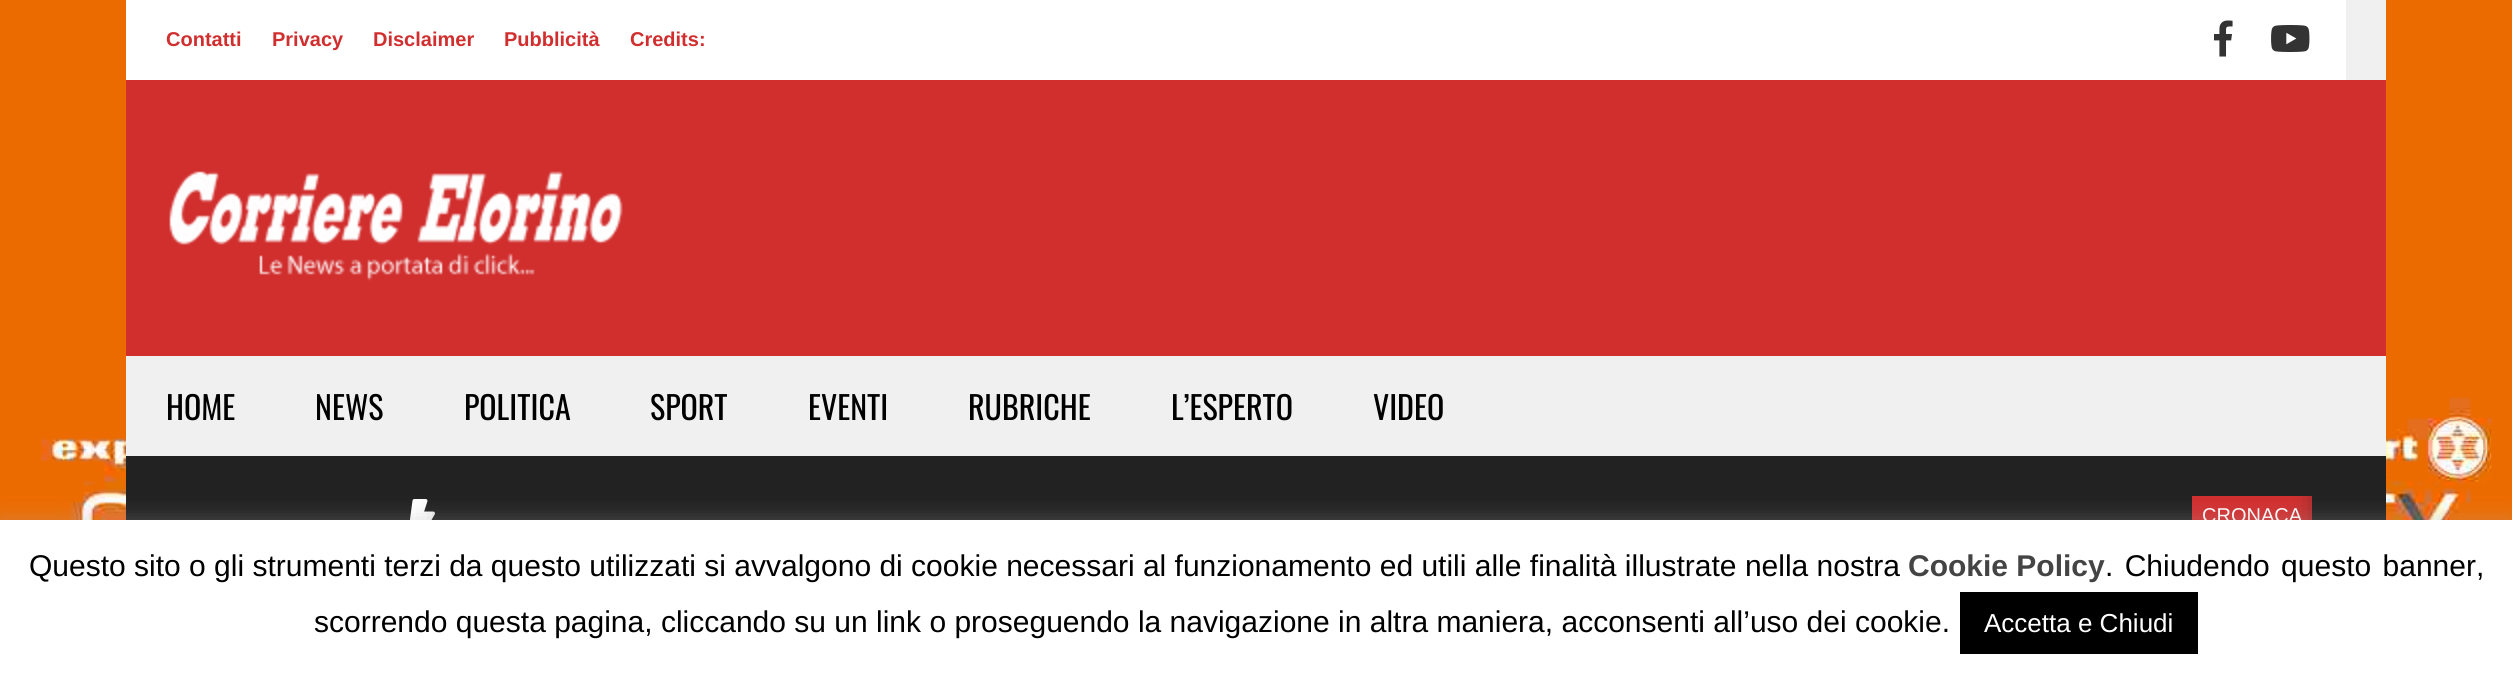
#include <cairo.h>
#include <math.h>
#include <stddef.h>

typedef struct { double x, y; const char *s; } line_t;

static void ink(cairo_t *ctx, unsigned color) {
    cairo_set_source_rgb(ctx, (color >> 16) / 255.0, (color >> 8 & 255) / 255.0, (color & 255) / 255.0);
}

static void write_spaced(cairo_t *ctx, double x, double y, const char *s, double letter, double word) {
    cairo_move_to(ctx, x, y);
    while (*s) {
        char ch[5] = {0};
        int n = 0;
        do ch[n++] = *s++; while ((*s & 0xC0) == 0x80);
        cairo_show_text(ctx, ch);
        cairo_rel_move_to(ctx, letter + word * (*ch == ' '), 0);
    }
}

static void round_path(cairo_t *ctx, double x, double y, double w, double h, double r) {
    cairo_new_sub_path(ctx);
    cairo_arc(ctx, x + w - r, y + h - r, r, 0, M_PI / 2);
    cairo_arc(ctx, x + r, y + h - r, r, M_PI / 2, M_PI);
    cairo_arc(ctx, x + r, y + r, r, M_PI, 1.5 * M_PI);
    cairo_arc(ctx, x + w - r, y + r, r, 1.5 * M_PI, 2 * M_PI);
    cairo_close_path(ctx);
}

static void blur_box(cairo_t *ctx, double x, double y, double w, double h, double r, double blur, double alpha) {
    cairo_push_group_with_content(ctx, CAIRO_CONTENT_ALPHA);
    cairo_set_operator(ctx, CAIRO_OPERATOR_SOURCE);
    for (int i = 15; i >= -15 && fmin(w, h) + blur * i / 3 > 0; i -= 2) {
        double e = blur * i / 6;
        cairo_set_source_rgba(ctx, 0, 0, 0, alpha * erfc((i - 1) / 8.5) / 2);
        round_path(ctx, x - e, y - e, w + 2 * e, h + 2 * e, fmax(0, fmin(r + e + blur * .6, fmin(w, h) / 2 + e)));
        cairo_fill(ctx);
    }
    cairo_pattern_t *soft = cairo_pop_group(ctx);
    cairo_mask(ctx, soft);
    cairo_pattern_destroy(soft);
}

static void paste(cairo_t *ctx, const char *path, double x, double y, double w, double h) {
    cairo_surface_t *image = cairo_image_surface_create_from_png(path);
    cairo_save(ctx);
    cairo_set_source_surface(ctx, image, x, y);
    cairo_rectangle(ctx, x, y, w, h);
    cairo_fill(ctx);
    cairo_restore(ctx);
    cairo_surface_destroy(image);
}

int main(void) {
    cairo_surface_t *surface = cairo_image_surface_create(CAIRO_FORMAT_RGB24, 2512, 678);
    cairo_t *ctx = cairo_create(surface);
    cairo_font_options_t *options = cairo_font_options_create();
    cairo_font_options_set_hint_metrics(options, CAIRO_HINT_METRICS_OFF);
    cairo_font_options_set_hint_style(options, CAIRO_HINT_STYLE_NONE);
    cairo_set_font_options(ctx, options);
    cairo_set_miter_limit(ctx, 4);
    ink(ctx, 0xFFFFFF);
    cairo_paint(ctx);
    paste(ctx, "media/1.png", 0, 0, 2512, 520);
    ink(ctx, 0xFFFFFF);
    cairo_rectangle(ctx, 126, 0, 2220, 80);
    cairo_fill(ctx);
    cairo_select_font_face(ctx, "Liberation Sans", CAIRO_FONT_SLANT_NORMAL, CAIRO_FONT_WEIGHT_BOLD);
    cairo_set_font_size(ctx, 20);
    ink(ctx, 0xD12F2F);
    {
        static const line_t items[] = {
            {166, 46, "Contatti"},
            {272, 46, "Privacy"},
            {373, 46, "Disclaimer"},
            {504, 46, "Pubblicità"},
            {630, 46, "Credits:"},
        };
        for (size_t i = 0; i < sizeof items / sizeof *items; i++) {
            cairo_move_to(ctx, items[i].x, items[i].y);
            cairo_show_text(ctx, items[i].s);
        }
    }
    paste(ctx, "media/2.png", 2214, 20, 19, 37);
    paste(ctx, "media/3.png", 2271, 25, 39, 27);
    ink(ctx, 0xF0F0F0);
    cairo_rectangle(ctx, 2346, 0, 40, 80);
    cairo_fill(ctx);
    ink(ctx, 0xD12E2E);
    cairo_rectangle(ctx, 126, 80, 2260, 276);
    cairo_fill(ctx);
    paste(ctx, "media/4.png", 169, 171, 454, 110);
    ink(ctx, 0xF0F0F0);
    cairo_rectangle(ctx, 126, 356, 2260, 100);
    cairo_fill(ctx);
    cairo_select_font_face(ctx, "Oswald", CAIRO_FONT_SLANT_NORMAL, CAIRO_FONT_WEIGHT_NORMAL);
    cairo_set_font_size(ctx, 32);
    ink(ctx, 0x000000);
    {
        static const line_t items[] = {
            {166, 420, "HOME"},
            {315, 420, "NEWS"},
            {464, 420, "POLITICA"},
            {650, 420, "SPORT"},
            {808, 420, "EVENTI"},
            {968, 420, "RUBRICHE"},
            {1171, 420, "L’ESPERTO"},
            {1373, 420, "VIDEO"},
        };
        for (size_t i = 0; i < sizeof items / sizeof *items; i++) {
            cairo_move_to(ctx, items[i].x, items[i].y);
            cairo_show_text(ctx, items[i].s);
        }
    }
    ink(ctx, 0x222222);
    cairo_rectangle(ctx, 126, 456, 2220, 64);
    cairo_fill(ctx);
    paste(ctx, "media/5.png", 410, 499, 25, 21);
    cairo_save(ctx);
    cairo_rectangle(ctx, 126, 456, 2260, 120);
    cairo_clip(ctx);
    cairo_set_fill_rule(ctx, CAIRO_FILL_RULE_EVEN_ODD);
    cairo_new_path(ctx);
    cairo_move_to(ctx, 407, 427);
    cairo_line_to(ctx, 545, 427);
    cairo_line_to(ctx, 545, 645);
    cairo_line_to(ctx, 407, 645);
    cairo_close_path(ctx);
    cairo_move_to(ctx, 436, 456);
    cairo_line_to(ctx, 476, 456);
    cairo_line_to(ctx, 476, 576);
    cairo_line_to(ctx, 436, 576);
    cairo_close_path(ctx);
    cairo_clip(ctx);
    ink(ctx, 0x222222);
    blur_box(ctx, 456, 476, 40, 120, 0, 16, 1);
    cairo_restore(ctx);
    ink(ctx, 0xD12F2F);
    cairo_rectangle(ctx, 2192, 496, 120, 24);
    cairo_fill(ctx);
    cairo_save(ctx);
    cairo_rectangle(ctx, 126, 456, 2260, 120);
    cairo_clip(ctx);
    ink(ctx, 0x222222);
    blur_box(ctx, 2326, 436, 40, 120, 0, 16, 1);
    cairo_restore(ctx);
    ink(ctx, 0x222222);
    cairo_rectangle(ctx, 2346, 456, 40, 64);
    cairo_fill(ctx);
    cairo_select_font_face(ctx, "Liberation Sans", CAIRO_FONT_SLANT_NORMAL, CAIRO_FONT_WEIGHT_NORMAL);
    cairo_set_font_size(ctx, 20);
    ink(ctx, 0xFFFFFF);
    cairo_move_to(ctx, 2202, 522);
    cairo_show_text(ctx, "CRONACA");
    ink(ctx, 0xACABAB);
    blur_box(ctx, 0, 518, 2512, 158, 0, 10, 0.3);
    ink(ctx, 0xFFFFFF);
    cairo_rectangle(ctx, 0, 520, 2512, 158);
    cairo_fill(ctx);
    cairo_set_font_size(ctx, 30);
    ink(ctx, 0x000000);
    cairo_move_to(ctx, 29, 576);
    cairo_show_text(ctx, "Questo sito o gli strumenti terzi da questo utilizzati si avvalgono di cookie necessari al funzionamento ed utili alle finalità illustrate nella nostra");
    cairo_select_font_face(ctx, "Liberation Sans", CAIRO_FONT_SLANT_NORMAL, CAIRO_FONT_WEIGHT_BOLD);
    ink(ctx, 0x444444);
    cairo_move_to(ctx, 1908, 576);
    cairo_show_text(ctx, "Cookie Policy");
    cairo_select_font_face(ctx, "Liberation Sans", CAIRO_FONT_SLANT_NORMAL, CAIRO_FONT_WEIGHT_NORMAL);
    ink(ctx, 0x000000);
    write_spaced(ctx, 2105, 576, ". Chiudendo questo banner,", 0, 3);
    cairo_move_to(ctx, 314, 632);
    cairo_show_text(ctx, "scorrendo questa pagina, cliccando su un link o proseguendo la navigazione in altra maniera, acconsenti all’uso dei cookie.");
    cairo_rectangle(ctx, 1960, 592, 238, 62);
    cairo_fill(ctx);
    cairo_set_font_size(ctx, 26);
    ink(ctx, 0xFFFFFF);
    cairo_move_to(ctx, 1984, 632);
    cairo_show_text(ctx, "Accetta e Chiudi");
    cairo_surface_write_to_png(surface, "image.png");
    cairo_font_options_destroy(options);
    cairo_destroy(ctx);
    cairo_surface_destroy(surface);
    return 0;
}
